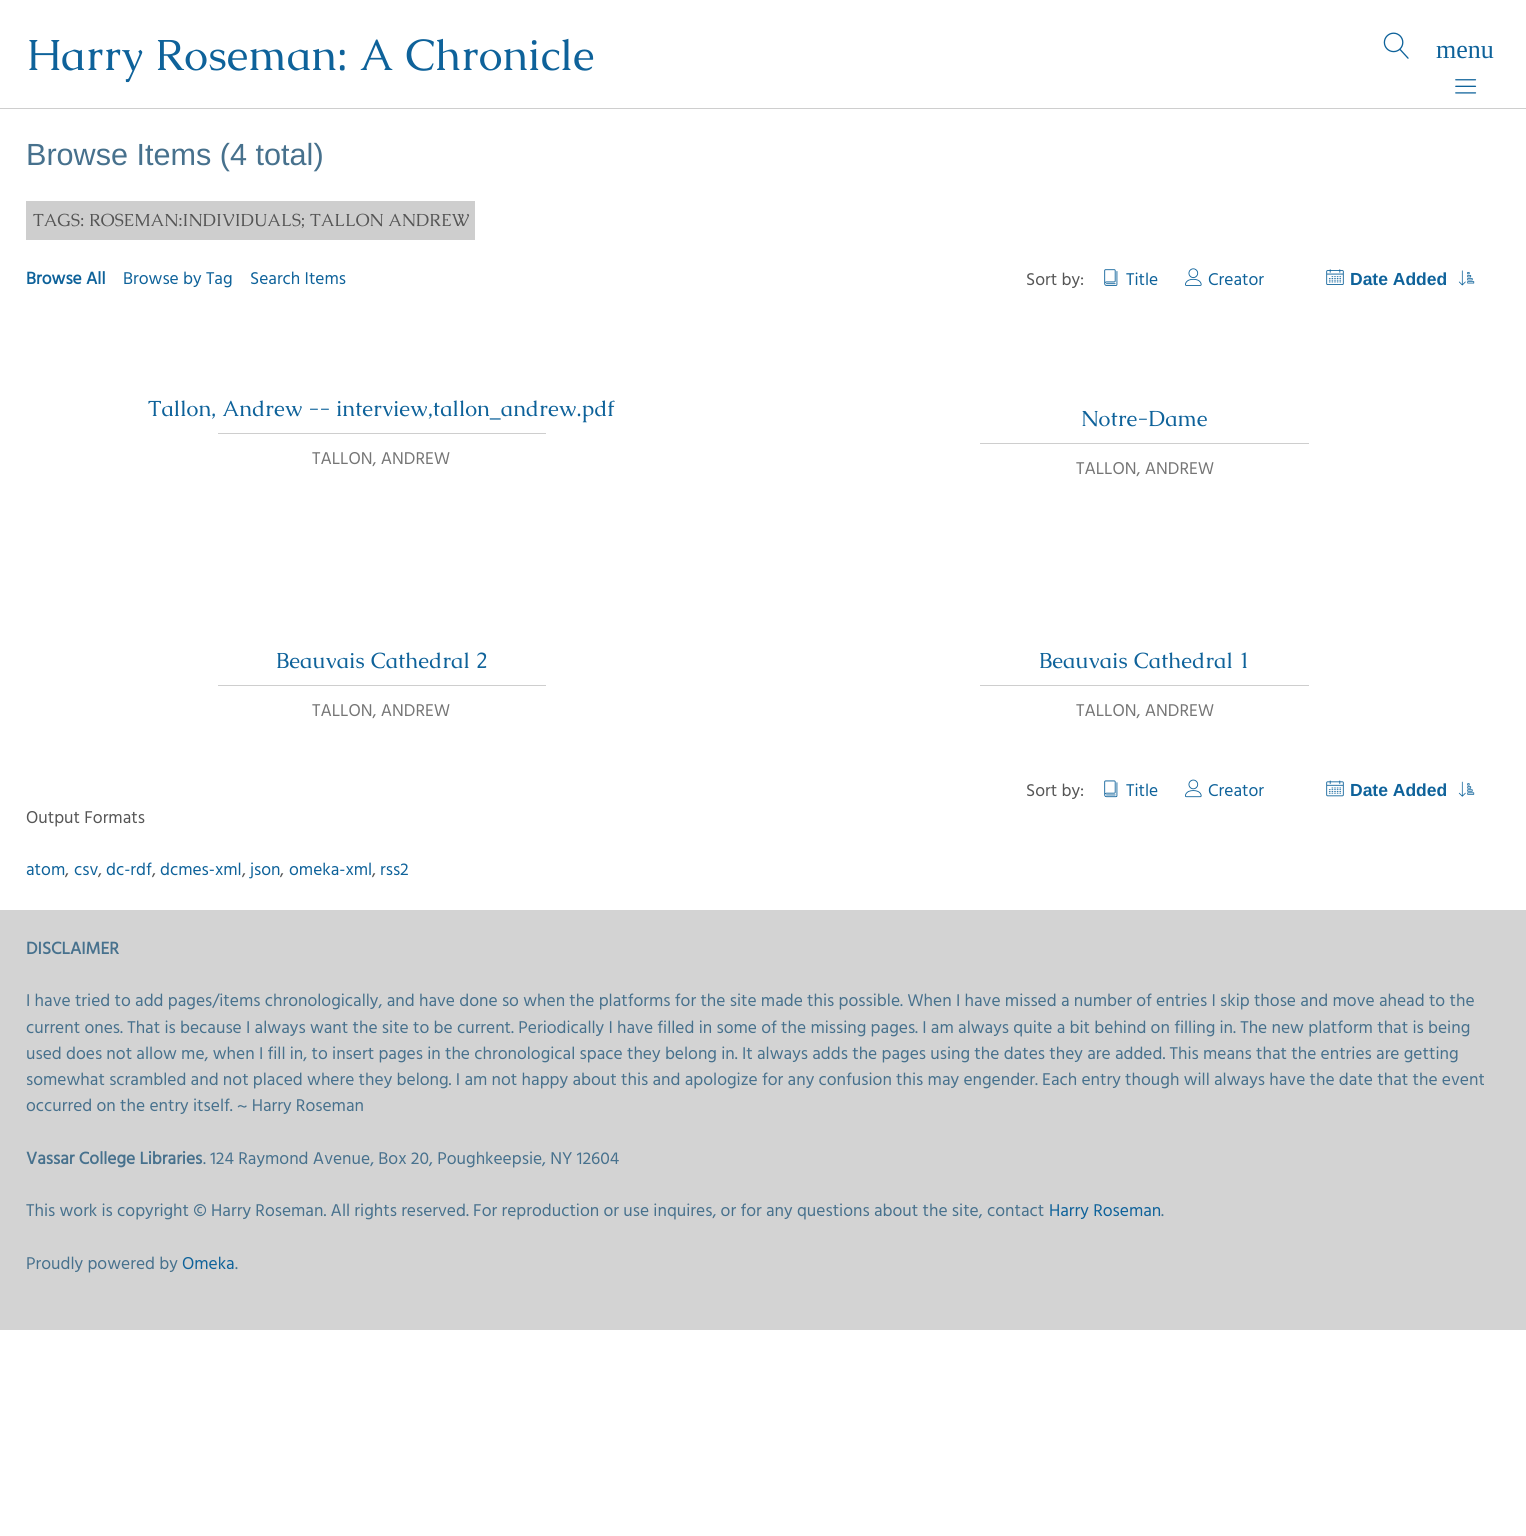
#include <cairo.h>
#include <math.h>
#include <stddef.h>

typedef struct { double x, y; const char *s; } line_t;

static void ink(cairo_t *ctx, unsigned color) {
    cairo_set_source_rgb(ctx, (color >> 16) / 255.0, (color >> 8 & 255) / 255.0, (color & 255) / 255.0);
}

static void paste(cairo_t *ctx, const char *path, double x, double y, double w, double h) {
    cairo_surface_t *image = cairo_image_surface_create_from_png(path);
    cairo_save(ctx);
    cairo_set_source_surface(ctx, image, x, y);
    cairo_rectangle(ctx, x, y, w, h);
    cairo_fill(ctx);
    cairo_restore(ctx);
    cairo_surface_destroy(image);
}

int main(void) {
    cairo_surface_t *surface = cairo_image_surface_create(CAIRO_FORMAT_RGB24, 1526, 1536);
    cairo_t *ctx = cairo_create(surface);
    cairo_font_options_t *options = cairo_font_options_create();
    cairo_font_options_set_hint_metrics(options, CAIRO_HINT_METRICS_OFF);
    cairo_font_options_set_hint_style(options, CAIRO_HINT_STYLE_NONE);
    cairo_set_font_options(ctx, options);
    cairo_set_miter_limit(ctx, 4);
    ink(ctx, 0xFFFFFF);
    cairo_paint(ctx);
    cairo_select_font_face(ctx, "Caudex", CAIRO_FONT_SLANT_NORMAL, CAIRO_FONT_WEIGHT_NORMAL);
    cairo_set_font_size(ctx, 43.75);
    ink(ctx, 0x0E629A);
    cairo_move_to(ctx, 26, 70);
    cairo_show_text(ctx, "Harry Roseman: A Chronicle");
    paste(ctx, "media/1.png", 1383, 32, 26, 27);
    paste(ctx, "media/2.png", 1455, 79, 22, 15);
    cairo_select_font_face(ctx, "Liberation Serif", CAIRO_FONT_SLANT_NORMAL, CAIRO_FONT_WEIGHT_NORMAL);
    cairo_set_font_size(ctx, 26);
    cairo_move_to(ctx, 1436, 58);
    cairo_show_text(ctx, "menu");
    ink(ctx, 0xCECECE);
    cairo_rectangle(ctx, 0, 108, 1526, 1);
    cairo_fill(ctx);
    cairo_select_font_face(ctx, "Liberation Sans", CAIRO_FONT_SLANT_NORMAL, CAIRO_FONT_WEIGHT_NORMAL);
    cairo_set_font_size(ctx, 30.6);
    ink(ctx, 0x47718D);
    cairo_move_to(ctx, 26, 165);
    cairo_show_text(ctx, "Browse Items (4 total)");
    ink(ctx, 0xCECECE);
    cairo_rectangle(ctx, 26, 201, 449, 39);
    cairo_fill(ctx);
    cairo_select_font_face(ctx, "Caudex", CAIRO_FONT_SLANT_NORMAL, CAIRO_FONT_WEIGHT_NORMAL);
    cairo_set_font_size(ctx, 17.5);
    ink(ctx, 0x555555);
    cairo_move_to(ctx, 33, 226);
    cairo_show_text(ctx, "TAGS: ROSEMAN:INDIVIDUALS; TALLON ANDREW");
    cairo_select_font_face(ctx, "Hind", CAIRO_FONT_SLANT_NORMAL, CAIRO_FONT_WEIGHT_BOLD);
    ink(ctx, 0x0E629A);
    cairo_move_to(ctx, 26, 284);
    cairo_show_text(ctx, "Browse All");
    cairo_select_font_face(ctx, "Hind", CAIRO_FONT_SLANT_NORMAL, CAIRO_FONT_WEIGHT_NORMAL);
    cairo_move_to(ctx, 123, 284);
    cairo_show_text(ctx, "Browse by Tag");
    cairo_move_to(ctx, 250, 284);
    cairo_show_text(ctx, "Search Items");
    ink(ctx, 0x555555);
    cairo_move_to(ctx, 1026, 285);
    cairo_show_text(ctx, "Sort by:");
    paste(ctx, "media/3.png", 1104, 269, 14, 17);
    ink(ctx, 0x0E629A);
    cairo_move_to(ctx, 1126, 285);
    cairo_show_text(ctx, "Title");
    paste(ctx, "media/4.png", 1185, 268, 17, 18);
    cairo_move_to(ctx, 1208, 285);
    cairo_show_text(ctx, "Creator");
    paste(ctx, "media/5.png", 1326, 269, 18, 16);
    cairo_select_font_face(ctx, "Liberation Sans", CAIRO_FONT_SLANT_NORMAL, CAIRO_FONT_WEIGHT_BOLD);
    cairo_move_to(ctx, 1350, 285);
    cairo_show_text(ctx, "Date Added");
    paste(ctx, "media/6.png", 1458, 270, 17, 16);
    cairo_select_font_face(ctx, "Caudex", CAIRO_FONT_SLANT_NORMAL, CAIRO_FONT_WEIGHT_NORMAL);
    cairo_set_font_size(ctx, 21.9);
    cairo_move_to(ctx, 148, 416);
    cairo_show_text(ctx, "Tallon, Andrew -- interview,tallon_andrew.pdf");
    ink(ctx, 0xCECECE);
    cairo_rectangle(ctx, 218, 433, 328, 1);
    cairo_fill(ctx);
    cairo_select_font_face(ctx, "Hind", CAIRO_FONT_SLANT_NORMAL, CAIRO_FONT_WEIGHT_NORMAL);
    cairo_set_font_size(ctx, 17.5);
    ink(ctx, 0x757575);
    cairo_move_to(ctx, 312, 464);
    cairo_show_text(ctx, "TALLON, ANDREW");
    cairo_select_font_face(ctx, "Caudex", CAIRO_FONT_SLANT_NORMAL, CAIRO_FONT_WEIGHT_NORMAL);
    cairo_set_font_size(ctx, 21.9);
    ink(ctx, 0x0E629A);
    cairo_move_to(ctx, 1081, 426);
    cairo_show_text(ctx, "Notre-Dame");
    ink(ctx, 0xCECECE);
    cairo_rectangle(ctx, 980, 443, 329, 1);
    cairo_fill(ctx);
    cairo_select_font_face(ctx, "Hind", CAIRO_FONT_SLANT_NORMAL, CAIRO_FONT_WEIGHT_NORMAL);
    cairo_set_font_size(ctx, 17.5);
    ink(ctx, 0x757575);
    cairo_move_to(ctx, 1076, 474);
    cairo_show_text(ctx, "TALLON, ANDREW");
    cairo_select_font_face(ctx, "Caudex", CAIRO_FONT_SLANT_NORMAL, CAIRO_FONT_WEIGHT_NORMAL);
    cairo_set_font_size(ctx, 21.9);
    ink(ctx, 0x0E629A);
    cairo_move_to(ctx, 276, 668);
    cairo_show_text(ctx, "Beauvais Cathedral 2");
    ink(ctx, 0xCECECE);
    cairo_rectangle(ctx, 218, 685, 328, 1);
    cairo_fill(ctx);
    cairo_select_font_face(ctx, "Hind", CAIRO_FONT_SLANT_NORMAL, CAIRO_FONT_WEIGHT_NORMAL);
    cairo_set_font_size(ctx, 17.5);
    ink(ctx, 0x757575);
    cairo_move_to(ctx, 312, 716);
    cairo_show_text(ctx, "TALLON, ANDREW");
    cairo_select_font_face(ctx, "Caudex", CAIRO_FONT_SLANT_NORMAL, CAIRO_FONT_WEIGHT_NORMAL);
    cairo_set_font_size(ctx, 21.9);
    ink(ctx, 0x0E629A);
    cairo_move_to(ctx, 1039, 668);
    cairo_show_text(ctx, "Beauvais Cathedral 1");
    ink(ctx, 0xCECECE);
    cairo_rectangle(ctx, 980, 685, 329, 1);
    cairo_fill(ctx);
    cairo_select_font_face(ctx, "Hind", CAIRO_FONT_SLANT_NORMAL, CAIRO_FONT_WEIGHT_NORMAL);
    cairo_set_font_size(ctx, 17.5);
    ink(ctx, 0x757575);
    cairo_move_to(ctx, 1076, 716);
    cairo_show_text(ctx, "TALLON, ANDREW");
    ink(ctx, 0x555555);
    cairo_move_to(ctx, 1026, 796);
    cairo_show_text(ctx, "Sort by:");
    paste(ctx, "media/7.png", 1104, 780, 14, 18);
    ink(ctx, 0x0E629A);
    cairo_move_to(ctx, 1126, 796);
    cairo_show_text(ctx, "Title");
    paste(ctx, "media/8.png", 1185, 779, 17, 19);
    cairo_move_to(ctx, 1208, 796);
    cairo_show_text(ctx, "Creator");
    paste(ctx, "media/9.png", 1326, 780, 18, 17);
    cairo_select_font_face(ctx, "Liberation Sans", CAIRO_FONT_SLANT_NORMAL, CAIRO_FONT_WEIGHT_BOLD);
    cairo_move_to(ctx, 1350, 796);
    cairo_show_text(ctx, "Date Added");
    paste(ctx, "media/10.png", 1458, 781, 17, 16);
    cairo_select_font_face(ctx, "Hind", CAIRO_FONT_SLANT_NORMAL, CAIRO_FONT_WEIGHT_NORMAL);
    ink(ctx, 0x555555);
    cairo_move_to(ctx, 26, 823);
    cairo_show_text(ctx, "Output Formats");
    ink(ctx, 0x0E629A);
    cairo_move_to(ctx, 26, 875);
    cairo_show_text(ctx, "atom");
    ink(ctx, 0x555555);
    cairo_move_to(ctx, 65, 875);
    cairo_show_text(ctx, ",");
    ink(ctx, 0x0E629A);
    cairo_move_to(ctx, 74, 875);
    cairo_show_text(ctx, "csv");
    ink(ctx, 0x555555);
    cairo_move_to(ctx, 98, 875);
    cairo_show_text(ctx, ",");
    ink(ctx, 0x0E629A);
    cairo_move_to(ctx, 106, 875);
    cairo_show_text(ctx, "dc-rdf");
    ink(ctx, 0x555555);
    cairo_move_to(ctx, 152, 875);
    cairo_show_text(ctx, ",");
    ink(ctx, 0x0E629A);
    cairo_move_to(ctx, 160, 875);
    cairo_show_text(ctx, "dcmes-xml");
    ink(ctx, 0x555555);
    cairo_move_to(ctx, 242, 875);
    cairo_show_text(ctx, ",");
    ink(ctx, 0x0E629A);
    cairo_move_to(ctx, 250, 875);
    cairo_show_text(ctx, "json");
    ink(ctx, 0x555555);
    cairo_move_to(ctx, 280, 875);
    cairo_show_text(ctx, ",");
    ink(ctx, 0x0E629A);
    cairo_move_to(ctx, 289, 875);
    cairo_show_text(ctx, "omeka-xml");
    ink(ctx, 0x555555);
    cairo_move_to(ctx, 372, 875);
    cairo_show_text(ctx, ",");
    ink(ctx, 0x0E629A);
    cairo_move_to(ctx, 380, 875);
    cairo_show_text(ctx, "rss2");
    ink(ctx, 0xD3D3D3);
    cairo_rectangle(ctx, 0, 910, 1526, 420);
    cairo_fill(ctx);
    cairo_select_font_face(ctx, "Hind", CAIRO_FONT_SLANT_NORMAL, CAIRO_FONT_WEIGHT_BOLD);
    ink(ctx, 0x47718D);
    cairo_move_to(ctx, 26, 954);
    cairo_show_text(ctx, "DISCLAIMER");
    cairo_select_font_face(ctx, "Hind", CAIRO_FONT_SLANT_NORMAL, CAIRO_FONT_WEIGHT_NORMAL);
    {
        static const line_t items[] = {
            {26, 1006, "I have tried to add pages/items chronologically, and have done so when the platforms for the site made this possible. When I have missed a number of entries I skip those and move ahead to the"},
            {26, 1033, "current ones. That is because I always want the site to be current. Periodically I have filled in some of the missing pages. I am always quite a bit behind on filling in. The new platform that is being"},
            {26, 1059, "used does not allow me, when I fill in, to insert pages in the chronological space they belong in. It always adds the pages using the dates they are added. This means that the entries are getting"},
            {26, 1085, "somewhat scrambled and not placed where they belong. I am not happy about this and apologize for any confusion this may engender. Each entry though will always have the date that the event"},
            {26, 1111, "occurred on the entry itself. ~ Harry Roseman"},
        };
        for (size_t i = 0; i < sizeof items / sizeof *items; i++) {
            cairo_move_to(ctx, items[i].x, items[i].y);
            cairo_show_text(ctx, items[i].s);
        }
    }
    cairo_select_font_face(ctx, "Hind", CAIRO_FONT_SLANT_NORMAL, CAIRO_FONT_WEIGHT_BOLD);
    cairo_move_to(ctx, 26, 1164);
    cairo_show_text(ctx, "Vassar College Libraries");
    cairo_select_font_face(ctx, "Hind", CAIRO_FONT_SLANT_NORMAL, CAIRO_FONT_WEIGHT_NORMAL);
    cairo_move_to(ctx, 203, 1164);
    cairo_show_text(ctx, ". 124 Raymond Avenue, Box 20, Poughkeepsie, NY 12604");
    cairo_move_to(ctx, 26, 1216);
    cairo_show_text(ctx, "This work is copyright © Harry Roseman. All rights reserved. For reproduction or use inquires, or for any questions about the site, contact");
    ink(ctx, 0x0E629A);
    cairo_move_to(ctx, 1049, 1216);
    cairo_show_text(ctx, "Harry Roseman");
    ink(ctx, 0x47718D);
    cairo_move_to(ctx, 1161, 1216);
    cairo_show_text(ctx, ".");
    cairo_move_to(ctx, 26, 1269);
    cairo_show_text(ctx, "Proudly powered by");
    ink(ctx, 0x0E629A);
    cairo_move_to(ctx, 182, 1269);
    cairo_show_text(ctx, "Omeka");
    ink(ctx, 0x47718D);
    cairo_move_to(ctx, 235, 1269);
    cairo_show_text(ctx, ".");
    cairo_surface_write_to_png(surface, "image.png");
    cairo_font_options_destroy(options);
    cairo_destroy(ctx);
    cairo_surface_destroy(surface);
    return 0;
}
